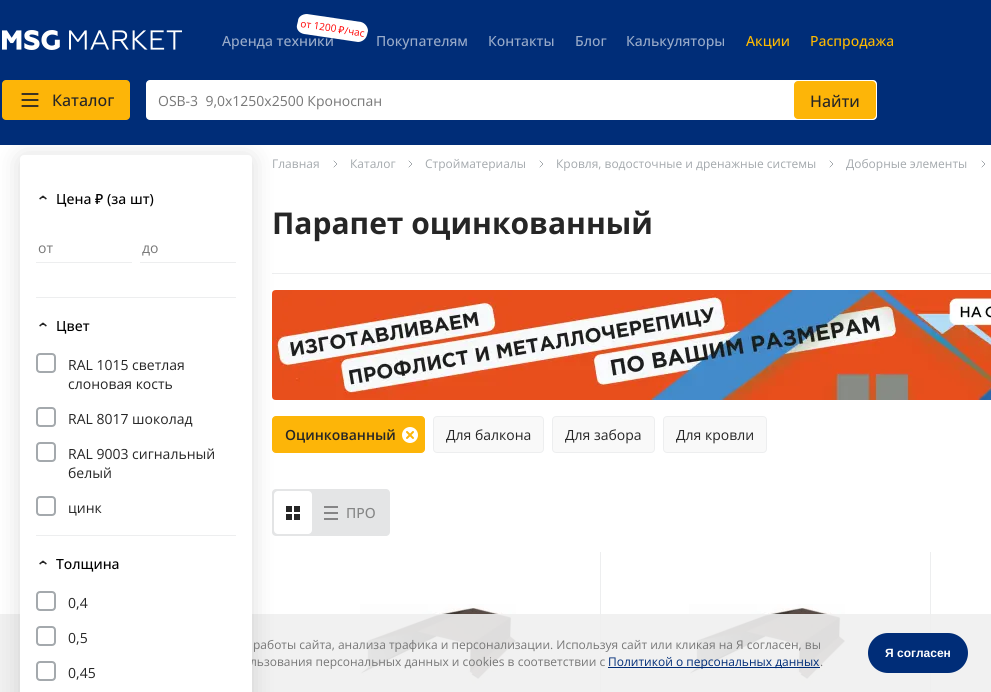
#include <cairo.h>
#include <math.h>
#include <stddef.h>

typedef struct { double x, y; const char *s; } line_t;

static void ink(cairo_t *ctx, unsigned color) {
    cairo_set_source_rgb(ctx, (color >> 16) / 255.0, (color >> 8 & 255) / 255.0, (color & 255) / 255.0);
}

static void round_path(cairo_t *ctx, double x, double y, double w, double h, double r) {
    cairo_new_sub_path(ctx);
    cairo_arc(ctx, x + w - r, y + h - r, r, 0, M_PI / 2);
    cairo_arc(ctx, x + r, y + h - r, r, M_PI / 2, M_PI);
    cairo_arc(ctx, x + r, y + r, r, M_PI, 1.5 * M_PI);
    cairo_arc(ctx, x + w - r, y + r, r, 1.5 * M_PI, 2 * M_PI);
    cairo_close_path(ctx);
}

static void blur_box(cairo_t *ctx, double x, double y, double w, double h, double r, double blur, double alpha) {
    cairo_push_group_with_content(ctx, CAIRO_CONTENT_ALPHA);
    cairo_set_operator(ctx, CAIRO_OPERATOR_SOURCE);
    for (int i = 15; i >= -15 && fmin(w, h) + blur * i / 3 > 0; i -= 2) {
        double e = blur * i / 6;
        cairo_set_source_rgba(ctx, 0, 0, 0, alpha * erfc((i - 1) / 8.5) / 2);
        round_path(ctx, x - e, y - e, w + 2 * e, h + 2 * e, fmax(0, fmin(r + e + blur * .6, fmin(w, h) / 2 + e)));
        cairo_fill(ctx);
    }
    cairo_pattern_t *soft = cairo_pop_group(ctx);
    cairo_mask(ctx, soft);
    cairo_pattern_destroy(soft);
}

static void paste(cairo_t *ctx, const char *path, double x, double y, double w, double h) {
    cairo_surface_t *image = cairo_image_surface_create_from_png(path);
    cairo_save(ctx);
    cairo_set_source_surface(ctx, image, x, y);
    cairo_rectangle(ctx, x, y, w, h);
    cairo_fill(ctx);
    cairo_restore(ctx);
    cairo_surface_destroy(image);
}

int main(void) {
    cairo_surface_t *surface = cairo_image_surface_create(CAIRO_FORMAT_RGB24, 991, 692);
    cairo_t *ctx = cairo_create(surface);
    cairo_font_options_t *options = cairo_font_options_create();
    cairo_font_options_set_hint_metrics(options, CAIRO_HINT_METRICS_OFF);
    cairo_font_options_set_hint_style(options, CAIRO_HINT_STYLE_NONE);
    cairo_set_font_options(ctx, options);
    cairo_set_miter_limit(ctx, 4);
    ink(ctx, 0xFFFFFF);
    cairo_paint(ctx);
    ink(ctx, 0xEDEEEF);
    cairo_rectangle(ctx, 272, 273, 719, 1);
    cairo_fill(ctx);
    paste(ctx, "media/5.png", 272, 290, 719, 110);
    ink(ctx, 0xFDB508);
    round_path(ctx, 272.5, 416.5, 152, 36, 3.5);
    cairo_fill_preserve(ctx);
    cairo_set_line_width(ctx, 1);
    cairo_stroke(ctx);
    ink(ctx, 0xE4E5E6);
    round_path(ctx, 272, 489, 118, 47, 4);
    cairo_fill(ctx);
    ink(ctx, 0xFFFFFF);
    round_path(ctx, 274, 491, 38, 43, 4);
    cairo_fill(ctx);
    paste(ctx, "media/7.png", 286, 506, 14, 14);
    ink(ctx, 0xEDEEEF);
    cairo_rectangle(ctx, 600, 552, 1, 140);
    cairo_fill(ctx);
    paste(ctx, "media/9.png", 360, 604, 156, 80);
    cairo_rectangle(ctx, 930, 552, 1, 140);
    cairo_fill(ctx);
    paste(ctx, "media/9.png", 689, 604, 156, 80);
    cairo_set_source_rgba(ctx, 0.941, 0.941, 0.941, 0.9);
    cairo_rectangle(ctx, 0, 614, 991, 78);
    cairo_fill(ctx);
    ink(ctx, 0x1D1D1D);
    blur_box(ctx, 20, 157, 232, 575, 4, 12, 0.16);
    ink(ctx, 0x002D78);
    cairo_rectangle(ctx, 0, 0, 991, 145);
    cairo_fill(ctx);
    paste(ctx, "media/1.png", 2, 30, 180, 20);
    cairo_select_font_face(ctx, "Open Sans Medium", CAIRO_FONT_SLANT_NORMAL, CAIRO_FONT_WEIGHT_NORMAL);
    cairo_set_font_size(ctx, 14);
    ink(ctx, 0x99ABC9);
    cairo_move_to(ctx, 222, 46);
    cairo_show_text(ctx, "Аренда техники");
    ink(ctx, 0xFFFFFF);
    cairo_new_path(ctx);
    cairo_move_to(ctx, 307, 14);
    cairo_line_to(ctx, 361, 22);
    cairo_curve_to(ctx, 365, 23, 368, 27, 368, 31);
    cairo_line_to(ctx, 367, 35);
    cairo_curve_to(ctx, 366, 39, 362, 42, 358, 42);
    cairo_line_to(ctx, 304, 34);
    cairo_curve_to(ctx, 299, 33, 296, 29, 297, 25);
    cairo_line_to(ctx, 298, 21);
    cairo_curve_to(ctx, 298, 17, 302, 14, 307, 14);
    cairo_close_path(ctx);
    cairo_fill(ctx);
    cairo_select_font_face(ctx, "Open Sans", CAIRO_FONT_SLANT_NORMAL, CAIRO_FONT_WEIGHT_NORMAL);
    cairo_set_font_size(ctx, 10);
    ink(ctx, 0xFF0000);
    cairo_save(ctx);
    cairo_translate(ctx, 300, 27);
    cairo_rotate(ctx, 8 * M_PI / 180);
    cairo_move_to(ctx, 0, 0);
    cairo_show_text(ctx, "от 1200");
    cairo_restore(ctx);
    cairo_select_font_face(ctx, "Noto Sans", CAIRO_FONT_SLANT_NORMAL, CAIRO_FONT_WEIGHT_NORMAL);
    cairo_save(ctx);
    cairo_translate(ctx, 338, 33);
    cairo_rotate(ctx, 8 * M_PI / 180);
    cairo_move_to(ctx, 0, 0);
    cairo_show_text(ctx, "₽");
    cairo_restore(ctx);
    cairo_select_font_face(ctx, "Open Sans", CAIRO_FONT_SLANT_NORMAL, CAIRO_FONT_WEIGHT_NORMAL);
    cairo_save(ctx);
    cairo_translate(ctx, 344, 34);
    cairo_rotate(ctx, 8 * M_PI / 180);
    cairo_move_to(ctx, 0, 0);
    cairo_show_text(ctx, "/час");
    cairo_restore(ctx);
    cairo_select_font_face(ctx, "Open Sans Medium", CAIRO_FONT_SLANT_NORMAL, CAIRO_FONT_WEIGHT_NORMAL);
    cairo_set_font_size(ctx, 14);
    ink(ctx, 0x99ABC9);
    {
        static const line_t items[] = {
            {376, 46, "Покупателям"},
            {488, 46, "Контакты"},
            {575, 46, "Блог"},
            {626, 46, "Калькуляторы"},
        };
        for (size_t i = 0; i < sizeof items / sizeof *items; i++) {
            cairo_move_to(ctx, items[i].x, items[i].y);
            cairo_show_text(ctx, items[i].s);
        }
    }
    ink(ctx, 0xFFBA00);
    cairo_move_to(ctx, 746, 46);
    cairo_show_text(ctx, "Акции");
    cairo_move_to(ctx, 810, 46);
    cairo_show_text(ctx, "Распродажа");
    ink(ctx, 0xFDB508);
    round_path(ctx, 2, 80, 128, 40, 4);
    cairo_fill(ctx);
    paste(ctx, "media/2.png", 21, 93, 18, 14);
    cairo_set_font_size(ctx, 16);
    ink(ctx, 0x262626);
    cairo_move_to(ctx, 52, 106);
    cairo_show_text(ctx, "Каталог");
    ink(ctx, 0xFFFFFF);
    round_path(ctx, 146, 80, 731, 40, 4);
    cairo_fill(ctx);
    cairo_select_font_face(ctx, "Open Sans", CAIRO_FONT_SLANT_NORMAL, CAIRO_FONT_WEIGHT_NORMAL);
    cairo_set_font_size(ctx, 14);
    ink(ctx, 0x777777);
    cairo_move_to(ctx, 158, 106);
    cairo_show_text(ctx, "OSB-3  9,0x1250x2500 Кроноспан");
    ink(ctx, 0xFDB508);
    round_path(ctx, 794, 81, 82, 38, 4);
    cairo_fill(ctx);
    cairo_select_font_face(ctx, "Open Sans Medium", CAIRO_FONT_SLANT_NORMAL, CAIRO_FONT_WEIGHT_NORMAL);
    cairo_set_font_size(ctx, 16);
    ink(ctx, 0x262626);
    cairo_move_to(ctx, 810, 107);
    cairo_show_text(ctx, "Найти");
    cairo_select_font_face(ctx, "Open Sans", CAIRO_FONT_SLANT_NORMAL, CAIRO_FONT_WEIGHT_NORMAL);
    cairo_set_font_size(ctx, 12);
    ink(ctx, 0x777777);
    cairo_move_to(ctx, 250, 666);
    cairo_show_text(ctx, "льзования персональных данных и cookies в соответствии с");
    ink(ctx, 0xFFFFFF);
    round_path(ctx, 20, 155, 232, 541, 4);
    cairo_fill(ctx);
    ink(ctx, 0xEDEEEF);
    cairo_rectangle(ctx, 36, 297, 200, 1);
    cairo_fill(ctx);
    paste(ctx, "media/3.png", 39, 195, 8, 5);
    cairo_select_font_face(ctx, "Open Sans Medium", CAIRO_FONT_SLANT_NORMAL, CAIRO_FONT_WEIGHT_NORMAL);
    cairo_set_font_size(ctx, 14);
    ink(ctx, 0x000000);
    cairo_move_to(ctx, 56, 204);
    cairo_show_text(ctx, "Цена");
    cairo_select_font_face(ctx, "Noto Sans Medium", CAIRO_FONT_SLANT_NORMAL, CAIRO_FONT_WEIGHT_NORMAL);
    cairo_move_to(ctx, 95, 204);
    cairo_show_text(ctx, "₽");
    cairo_select_font_face(ctx, "Open Sans Medium", CAIRO_FONT_SLANT_NORMAL, CAIRO_FONT_WEIGHT_NORMAL);
    cairo_move_to(ctx, 107, 204);
    cairo_show_text(ctx, "(за шт)");
    ink(ctx, 0xEDEEEF);
    cairo_rectangle(ctx, 36, 262, 96, 1);
    cairo_fill(ctx);
    cairo_select_font_face(ctx, "Open Sans", CAIRO_FONT_SLANT_NORMAL, CAIRO_FONT_WEIGHT_NORMAL);
    ink(ctx, 0x777777);
    cairo_move_to(ctx, 38, 253);
    cairo_show_text(ctx, "от");
    ink(ctx, 0xEDEEEF);
    cairo_rectangle(ctx, 140, 262, 96, 1);
    cairo_fill(ctx);
    ink(ctx, 0x777777);
    cairo_move_to(ctx, 142, 253);
    cairo_show_text(ctx, "до");
    ink(ctx, 0xEDEEEF);
    cairo_rectangle(ctx, 36, 535, 200, 1);
    cairo_fill(ctx);
    paste(ctx, "media/3.png", 39, 322, 8, 5);
    cairo_select_font_face(ctx, "Open Sans Medium", CAIRO_FONT_SLANT_NORMAL, CAIRO_FONT_WEIGHT_NORMAL);
    ink(ctx, 0x000000);
    cairo_move_to(ctx, 56, 331);
    cairo_show_text(ctx, "Цвет");
    round_path(ctx, 37, 354, 18, 18, 3);
    ink(ctx, 0xA4A9AD);
    cairo_set_line_width(ctx, 2);
    cairo_stroke(ctx);
    cairo_select_font_face(ctx, "Open Sans", CAIRO_FONT_SLANT_NORMAL, CAIRO_FONT_WEIGHT_NORMAL);
    ink(ctx, 0x262626);
    cairo_move_to(ctx, 68, 370);
    cairo_show_text(ctx, "RAL 1015 светлая");
    cairo_move_to(ctx, 68, 389);
    cairo_show_text(ctx, "слоновая кость");
    round_path(ctx, 37, 408, 18, 18, 3);
    ink(ctx, 0xA4A9AD);
    cairo_stroke(ctx);
    ink(ctx, 0x262626);
    cairo_move_to(ctx, 68, 424);
    cairo_show_text(ctx, "RAL 8017 шоколад");
    round_path(ctx, 37, 443, 18, 18, 3);
    ink(ctx, 0xA4A9AD);
    cairo_stroke(ctx);
    ink(ctx, 0x262626);
    cairo_move_to(ctx, 68, 459);
    cairo_show_text(ctx, "RAL 9003 сигнальный");
    cairo_move_to(ctx, 68, 478);
    cairo_show_text(ctx, "белый");
    round_path(ctx, 37, 497, 18, 18, 3);
    ink(ctx, 0xA4A9AD);
    cairo_stroke(ctx);
    ink(ctx, 0x262626);
    cairo_move_to(ctx, 68, 513);
    cairo_show_text(ctx, "цинк");
    paste(ctx, "media/3.png", 39, 560, 8, 5);
    cairo_select_font_face(ctx, "Open Sans Medium", CAIRO_FONT_SLANT_NORMAL, CAIRO_FONT_WEIGHT_NORMAL);
    ink(ctx, 0x000000);
    cairo_move_to(ctx, 56, 569);
    cairo_show_text(ctx, "Толщина");
    round_path(ctx, 37, 592, 18, 18, 3);
    ink(ctx, 0xA4A9AD);
    cairo_stroke(ctx);
    cairo_select_font_face(ctx, "Open Sans", CAIRO_FONT_SLANT_NORMAL, CAIRO_FONT_WEIGHT_NORMAL);
    ink(ctx, 0x262626);
    cairo_move_to(ctx, 68, 608);
    cairo_show_text(ctx, "0,4");
    round_path(ctx, 37, 627, 18, 18, 3);
    ink(ctx, 0xA4A9AD);
    cairo_stroke(ctx);
    ink(ctx, 0x262626);
    cairo_move_to(ctx, 68, 643);
    cairo_show_text(ctx, "0,5");
    round_path(ctx, 37, 662, 18, 18, 3);
    ink(ctx, 0xA4A9AD);
    cairo_stroke(ctx);
    ink(ctx, 0x262626);
    cairo_move_to(ctx, 68, 678);
    cairo_show_text(ctx, "0,45");
    cairo_set_font_size(ctx, 12);
    ink(ctx, 0xA4A9AD);
    cairo_move_to(ctx, 272, 168);
    cairo_show_text(ctx, "Главная");
    paste(ctx, "media/4.png", 333, 160, 4, 8);
    cairo_move_to(ctx, 350, 168);
    cairo_show_text(ctx, "Каталог");
    paste(ctx, "media/4.png", 408, 160, 4, 8);
    cairo_move_to(ctx, 425, 168);
    cairo_show_text(ctx, "Стройматериалы");
    paste(ctx, "media/4.png", 539, 160, 4, 8);
    cairo_move_to(ctx, 556, 168);
    cairo_show_text(ctx, "Кровля, водосточные и дренажные системы");
    paste(ctx, "media/4.png", 829, 160, 4, 8);
    cairo_move_to(ctx, 846, 168);
    cairo_show_text(ctx, "Доборные элементы");
    paste(ctx, "media/4.png", 981, 160, 4, 8);
    cairo_select_font_face(ctx, "Open Sans", CAIRO_FONT_SLANT_NORMAL, CAIRO_FONT_WEIGHT_BOLD);
    cairo_set_font_size(ctx, 30);
    ink(ctx, 0x262626);
    cairo_move_to(ctx, 272, 234);
    cairo_show_text(ctx, "Парапет оцинкованный");
    cairo_select_font_face(ctx, "Open Sans SemiBold", CAIRO_FONT_SLANT_NORMAL, CAIRO_FONT_WEIGHT_NORMAL);
    cairo_set_font_size(ctx, 14);
    cairo_move_to(ctx, 285, 440);
    cairo_show_text(ctx, "Оцинкованный");
    paste(ctx, "media/6.png", 402, 427, 16, 16);
    ink(ctx, 0xF9F9F9);
    round_path(ctx, 433.5, 416.5, 110, 36, 3.5);
    cairo_fill_preserve(ctx);
    ink(ctx, 0xEDEEEF);
    cairo_set_line_width(ctx, 1);
    cairo_stroke(ctx);
    cairo_select_font_face(ctx, "Open Sans", CAIRO_FONT_SLANT_NORMAL, CAIRO_FONT_WEIGHT_NORMAL);
    ink(ctx, 0x262626);
    cairo_move_to(ctx, 446, 440);
    cairo_show_text(ctx, "Для балкона");
    ink(ctx, 0xF9F9F9);
    round_path(ctx, 552.5, 416.5, 102, 36, 3.5);
    cairo_fill_preserve(ctx);
    ink(ctx, 0xEDEEEF);
    cairo_stroke(ctx);
    ink(ctx, 0x262626);
    cairo_move_to(ctx, 565, 440);
    cairo_show_text(ctx, "Для забора");
    ink(ctx, 0xF9F9F9);
    round_path(ctx, 663.5, 416.5, 103, 36, 3.5);
    cairo_fill_preserve(ctx);
    ink(ctx, 0xEDEEEF);
    cairo_stroke(ctx);
    ink(ctx, 0x262626);
    cairo_move_to(ctx, 676, 440);
    cairo_show_text(ctx, "Для кровли");
    paste(ctx, "media/8.png", 324, 506, 14, 14);
    cairo_select_font_face(ctx, "Open Sans Medium", CAIRO_FONT_SLANT_NORMAL, CAIRO_FONT_WEIGHT_NORMAL);
    ink(ctx, 0x858686);
    cairo_move_to(ctx, 346, 518);
    cairo_show_text(ctx, "ПРО");
    cairo_select_font_face(ctx, "Open Sans", CAIRO_FONT_SLANT_NORMAL, CAIRO_FONT_WEIGHT_NORMAL);
    cairo_set_font_size(ctx, 12);
    ink(ctx, 0x777777);
    cairo_move_to(ctx, 253, 649);
    cairo_show_text(ctx, "работы сайта, анализа трафика и персонализации. Используя сайт или кликая на Я согласен, вы");
    ink(ctx, 0x002D78);
    cairo_rectangle(ctx, 608, 667, 212, 1);
    cairo_fill(ctx);
    cairo_move_to(ctx, 608, 666);
    cairo_show_text(ctx, "Политикой о персональных данных");
    ink(ctx, 0x777777);
    cairo_move_to(ctx, 820, 666);
    cairo_show_text(ctx, ".");
    ink(ctx, 0x002D78);
    round_path(ctx, 868, 633, 100, 40, 20);
    cairo_fill(ctx);
    cairo_select_font_face(ctx, "Liberation Sans", CAIRO_FONT_SLANT_NORMAL, CAIRO_FONT_WEIGHT_BOLD);
    ink(ctx, 0xFFFFFF);
    cairo_move_to(ctx, 885, 657);
    cairo_show_text(ctx, "Я согласен");
    cairo_surface_write_to_png(surface, "image.png");
    cairo_font_options_destroy(options);
    cairo_destroy(ctx);
    cairo_surface_destroy(surface);
    return 0;
}
